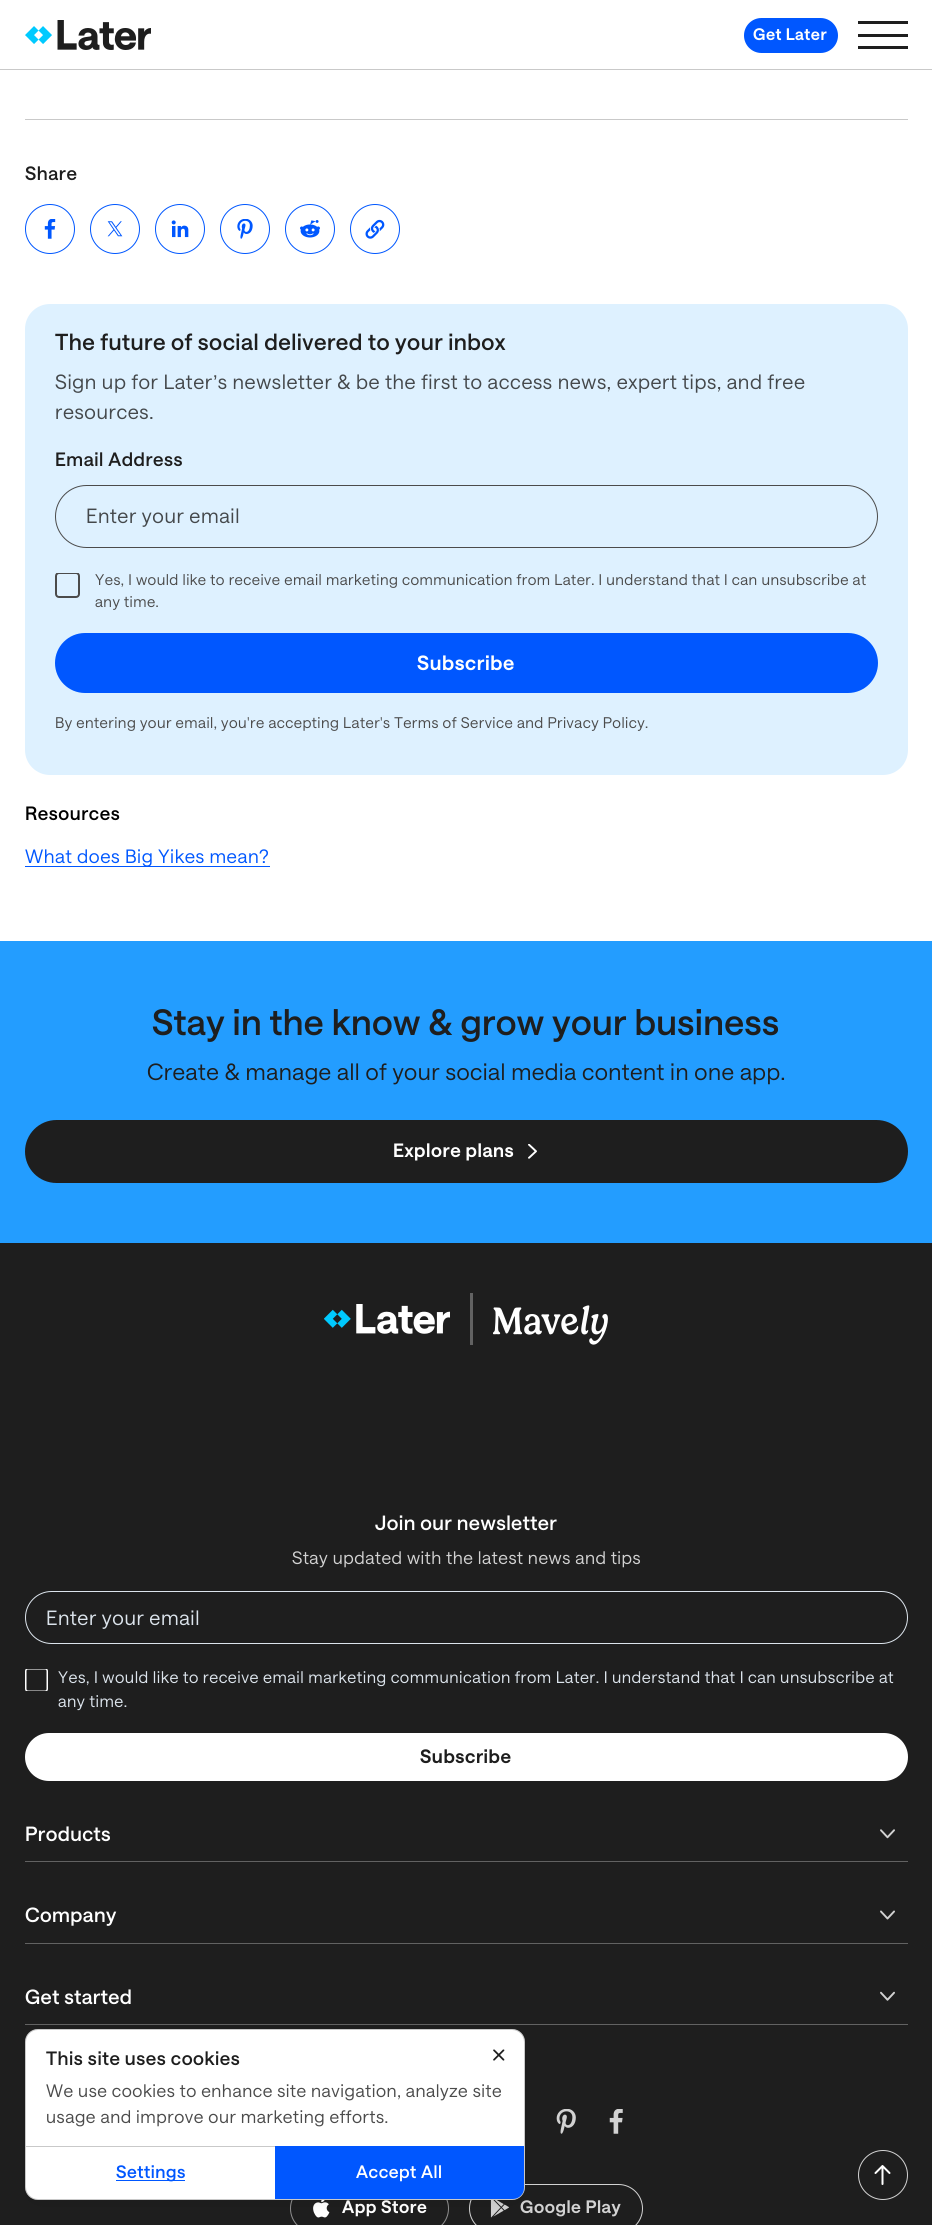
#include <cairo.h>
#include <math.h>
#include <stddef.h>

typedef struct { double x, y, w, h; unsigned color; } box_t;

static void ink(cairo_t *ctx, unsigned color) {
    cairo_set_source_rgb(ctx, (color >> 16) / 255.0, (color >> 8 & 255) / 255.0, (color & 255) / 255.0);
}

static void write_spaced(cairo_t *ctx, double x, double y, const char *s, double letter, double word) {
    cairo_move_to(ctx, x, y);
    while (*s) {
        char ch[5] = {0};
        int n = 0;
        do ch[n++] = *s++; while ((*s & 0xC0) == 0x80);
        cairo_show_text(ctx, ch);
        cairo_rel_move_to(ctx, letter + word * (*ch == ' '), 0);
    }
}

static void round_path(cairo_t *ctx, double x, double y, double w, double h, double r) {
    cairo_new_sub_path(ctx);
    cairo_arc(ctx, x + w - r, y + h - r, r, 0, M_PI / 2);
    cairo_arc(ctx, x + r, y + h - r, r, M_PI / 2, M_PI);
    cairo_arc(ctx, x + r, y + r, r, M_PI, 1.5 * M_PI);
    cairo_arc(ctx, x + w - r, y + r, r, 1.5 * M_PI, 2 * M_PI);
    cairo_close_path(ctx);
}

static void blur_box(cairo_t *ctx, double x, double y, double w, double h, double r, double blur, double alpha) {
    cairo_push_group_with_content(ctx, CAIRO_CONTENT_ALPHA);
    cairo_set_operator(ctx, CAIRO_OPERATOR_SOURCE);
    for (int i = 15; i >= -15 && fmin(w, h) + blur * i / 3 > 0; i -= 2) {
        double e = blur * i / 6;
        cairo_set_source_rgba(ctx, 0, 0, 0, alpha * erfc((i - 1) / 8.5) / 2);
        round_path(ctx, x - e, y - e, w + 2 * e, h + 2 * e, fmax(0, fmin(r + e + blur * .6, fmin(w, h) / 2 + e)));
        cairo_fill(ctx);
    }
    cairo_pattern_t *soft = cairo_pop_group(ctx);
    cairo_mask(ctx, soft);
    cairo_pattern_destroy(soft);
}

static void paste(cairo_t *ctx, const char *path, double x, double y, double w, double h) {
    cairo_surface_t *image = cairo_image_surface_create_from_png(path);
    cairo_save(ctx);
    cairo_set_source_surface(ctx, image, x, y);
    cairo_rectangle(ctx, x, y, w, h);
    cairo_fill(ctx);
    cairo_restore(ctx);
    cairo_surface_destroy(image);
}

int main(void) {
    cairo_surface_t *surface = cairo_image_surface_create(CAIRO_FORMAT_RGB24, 932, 2225);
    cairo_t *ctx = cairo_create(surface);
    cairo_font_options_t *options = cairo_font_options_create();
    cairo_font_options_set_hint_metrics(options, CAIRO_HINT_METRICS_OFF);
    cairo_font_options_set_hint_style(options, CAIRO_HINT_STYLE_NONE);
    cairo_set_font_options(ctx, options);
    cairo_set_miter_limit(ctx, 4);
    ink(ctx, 0xFFFFFF);
    cairo_paint(ctx);
    ink(ctx, 0xC9C9C9);
    cairo_rectangle(ctx, 0, 69, 932, 1);
    cairo_fill(ctx);
    paste(ctx, "media/1.png", 25, 20, 126, 30);
    ink(ctx, 0x0057FF);
    round_path(ctx, 744, 18, 94, 35, 17.5);
    cairo_fill(ctx);
    cairo_select_font_face(ctx, "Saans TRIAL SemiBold", CAIRO_FONT_SLANT_NORMAL, CAIRO_FONT_WEIGHT_NORMAL);
    cairo_set_font_size(ctx, 16.25);
    ink(ctx, 0xFFFFFF);
    write_spaced(ctx, 753, 40, "Get Later", 0.49, 0);
    {
        static const box_t items[] = {
            {858, 21, 50, 3, 0x1E1E1E},
            {858, 34, 50, 3, 0x1E1E1E},
            {858, 46, 50, 3, 0x1E1E1E},
            {25, 119, 883, 1, 0xC9C9C9},
        };
        for (size_t i = 0; i < sizeof items / sizeof *items; i++) {
            ink(ctx, items[i].color);
            cairo_rectangle(ctx, items[i].x, items[i].y, items[i].w, items[i].h);
            cairo_fill(ctx);
        }
    }
    cairo_select_font_face(ctx, "Saans TRIAL Medium", CAIRO_FONT_SLANT_NORMAL, CAIRO_FONT_WEIGHT_NORMAL);
    cairo_set_font_size(ctx, 18.75);
    ink(ctx, 0x1E1E1E);
    write_spaced(ctx, 25, 180, "Share", 0.55, 0);
    cairo_new_path(ctx);
    cairo_arc(ctx, 50, 229, 24.5, 0, 2 * M_PI);
    ink(ctx, 0x0057FF);
    cairo_set_line_width(ctx, 1);
    cairo_stroke(ctx);
    paste(ctx, "media/2.png", 44, 219, 12, 20);
    cairo_arc(ctx, 115, 229, 24.5, 0, 2 * M_PI);
    cairo_stroke(ctx);
    paste(ctx, "media/3.png", 107, 221, 16, 16);
    cairo_arc(ctx, 180, 229, 24.5, 0, 2 * M_PI);
    cairo_stroke(ctx);
    paste(ctx, "media/4.png", 171, 220, 18, 18);
    cairo_arc(ctx, 245, 229, 24.5, 0, 2 * M_PI);
    cairo_stroke(ctx);
    paste(ctx, "media/5.png", 237, 219, 16, 20);
    cairo_arc(ctx, 310, 229, 24.5, 0, 2 * M_PI);
    cairo_stroke(ctx);
    paste(ctx, "media/6.png", 300, 220, 20, 18);
    cairo_arc(ctx, 375, 229, 24.5, 0, 2 * M_PI);
    cairo_stroke(ctx);
    paste(ctx, "media/7.png", 365, 219, 20, 20);
    ink(ctx, 0xDEF1FF);
    round_path(ctx, 25, 304, 883, 471, 25);
    cairo_fill(ctx);
    cairo_set_font_size(ctx, 22.5);
    ink(ctx, 0x1E1E1E);
    write_spaced(ctx, 55, 350, "The future of social delivered to your inbox", 0.45, 0);
    cairo_select_font_face(ctx, "Saans TRIAL", CAIRO_FONT_SLANT_NORMAL, CAIRO_FONT_WEIGHT_NORMAL);
    cairo_set_font_size(ctx, 20);
    ink(ctx, 0x44484B);
    write_spaced(ctx, 55, 389, "Sign up for Later s newsletter & be the first to access news, expert tips, and free", 0.6, 0);
    cairo_select_font_face(ctx, "Liberation Sans", CAIRO_FONT_SLANT_NORMAL, CAIRO_FONT_WEIGHT_NORMAL);
    write_spaced(ctx, 213, 389, "’", 0.6, 0);
    cairo_select_font_face(ctx, "Saans TRIAL", CAIRO_FONT_SLANT_NORMAL, CAIRO_FONT_WEIGHT_NORMAL);
    write_spaced(ctx, 55, 419, "resources.", 0.6, 0);
    cairo_select_font_face(ctx, "Saans TRIAL Medium", CAIRO_FONT_SLANT_NORMAL, CAIRO_FONT_WEIGHT_NORMAL);
    cairo_set_font_size(ctx, 18.75);
    ink(ctx, 0x1E1E1E);
    write_spaced(ctx, 55, 466, "Email Address", 0.55, 0);
    round_path(ctx, 55.5, 485.5, 822, 62, 31);
    ink(ctx, 0x4B4B4B);
    cairo_stroke(ctx);
    cairo_select_font_face(ctx, "Saans TRIAL", CAIRO_FONT_SLANT_NORMAL, CAIRO_FONT_WEIGHT_NORMAL);
    cairo_set_font_size(ctx, 20);
    ink(ctx, 0x44484B);
    write_spaced(ctx, 86, 523, "Enter your email", 0.6, 0);
    cairo_save(ctx);
    cairo_rectangle(ctx, 55, 573, 25, 25);
    cairo_clip(ctx);
    round_path(ctx, 56, 573, 23, 24, 3);
    ink(ctx, 0x4B4B4B);
    cairo_set_line_width(ctx, 2);
    cairo_stroke(ctx);
    cairo_restore(ctx);
    cairo_set_font_size(ctx, 15);
    ink(ctx, 0x4B4B4B);
    write_spaced(ctx, 95, 585, "Yes, I would like to receive email marketing communication from Later. I understand that I can unsubscribe at", 0.45, 0);
    write_spaced(ctx, 95, 607, "any time.", 0.45, 0);
    ink(ctx, 0x0057FF);
    round_path(ctx, 55, 633, 823, 60, 30);
    cairo_fill(ctx);
    cairo_select_font_face(ctx, "Saans TRIAL SemiBold", CAIRO_FONT_SLANT_NORMAL, CAIRO_FONT_WEIGHT_NORMAL);
    cairo_set_font_size(ctx, 20);
    ink(ctx, 0xFFFFFF);
    write_spaced(ctx, 417, 670, "Subscribe", 0.6, 0);
    cairo_select_font_face(ctx, "Saans TRIAL", CAIRO_FONT_SLANT_NORMAL, CAIRO_FONT_WEIGHT_NORMAL);
    cairo_set_font_size(ctx, 15);
    ink(ctx, 0x4B4B4B);
    write_spaced(ctx, 55, 728, "By entering your email, you're accepting Later's Terms of Service and Privacy Policy.", 0.45, 0);
    cairo_select_font_face(ctx, "Saans TRIAL Medium", CAIRO_FONT_SLANT_NORMAL, CAIRO_FONT_WEIGHT_NORMAL);
    cairo_set_font_size(ctx, 18.75);
    ink(ctx, 0x000000);
    write_spaced(ctx, 25, 820, "Resources", 0.55, 0);
    ink(ctx, 0x0057FF);
    cairo_rectangle(ctx, 25, 866, 245, 1);
    cairo_fill(ctx);
    cairo_select_font_face(ctx, "Saans TRIAL", CAIRO_FONT_SLANT_NORMAL, CAIRO_FONT_WEIGHT_NORMAL);
    write_spaced(ctx, 25, 863, "What does Big Yikes mean?", 0.55, 0);
    ink(ctx, 0x239DFF);
    cairo_rectangle(ctx, 0, 941, 932, 302);
    cairo_fill(ctx);
    cairo_select_font_face(ctx, "Saans TRIAL Medium", CAIRO_FONT_SLANT_NORMAL, CAIRO_FONT_WEIGHT_NORMAL);
    cairo_set_font_size(ctx, 35.6);
    ink(ctx, 0x1E1E1E);
    write_spaced(ctx, 152, 1035, "Stay in the know & grow your business", 0.35, 0);
    cairo_select_font_face(ctx, "Saans TRIAL", CAIRO_FONT_SLANT_NORMAL, CAIRO_FONT_WEIGHT_NORMAL);
    cairo_set_font_size(ctx, 22.8);
    write_spaced(ctx, 147, 1080, "Create & manage all of your social media content in one app.", 0.45, 0);
    round_path(ctx, 25, 1120, 883, 63, 31.5);
    cairo_fill(ctx);
    cairo_select_font_face(ctx, "Saans TRIAL SemiBold", CAIRO_FONT_SLANT_NORMAL, CAIRO_FONT_WEIGHT_NORMAL);
    cairo_set_font_size(ctx, 18.75);
    ink(ctx, 0xFFFFFF);
    write_spaced(ctx, 393, 1157, "Explore plans", 0.55, 0);
    paste(ctx, "media/8.png", 528, 1144, 9, 15);
    ink(ctx, 0x1E1E1E);
    cairo_rectangle(ctx, 0, 1243, 932, 982);
    cairo_fill(ctx);
    cairo_arc(ctx, 883, 2175, 24.5, 0, 2 * M_PI);
    ink(ctx, 0xD2D2D2);
    cairo_stroke(ctx);
    paste(ctx, "media/9.png", 874, 2165, 17, 20);
    paste(ctx, "media/10.png", 324, 1304, 126, 30);
    ink(ctx, 0x626262);
    cairo_rectangle(ctx, 470, 1293, 3, 52);
    cairo_fill(ctx);
    paste(ctx, "media/11.png", 493, 1305, 115, 40);
    cairo_select_font_face(ctx, "Saans TRIAL Medium", CAIRO_FONT_SLANT_NORMAL, CAIRO_FONT_WEIGHT_NORMAL);
    cairo_set_font_size(ctx, 20);
    ink(ctx, 0xFFFFFF);
    write_spaced(ctx, 375, 1530, "Join our newsletter", 0.4, 0);
    cairo_select_font_face(ctx, "Saans TRIAL", CAIRO_FONT_SLANT_NORMAL, CAIRO_FONT_WEIGHT_NORMAL);
    cairo_set_font_size(ctx, 17.5);
    ink(ctx, 0xD2D2D2);
    write_spaced(ctx, 292, 1564, "Stay updated with the latest news and tips", 0.53, 0);
    round_path(ctx, 25.5, 1591.5, 882, 52, 26);
    ink(ctx, 0xDCE4EC);
    cairo_stroke(ctx);
    cairo_set_font_size(ctx, 20);
    write_spaced(ctx, 46, 1625, "Enter your email", 0.6, 0);
    cairo_save(ctx);
    cairo_rectangle(ctx, 25, 1669, 23, 22);
    cairo_clip(ctx);
    round_path(ctx, 25.75, 1668.75, 21.5, 22.5, 2.25);
    ink(ctx, 0xFFFFFF);
    cairo_set_line_width(ctx, 1.5);
    cairo_stroke(ctx);
    cairo_restore(ctx);
    cairo_set_font_size(ctx, 16.25);
    write_spaced(ctx, 58, 1683, "Yes, I would like to receive email marketing communication from Later. I understand that I can unsubscribe at", 0.49, 0);
    write_spaced(ctx, 58, 1707, "any time.", 0.49, 0);
    ink(ctx, 0xFFFFFF);
    round_path(ctx, 25, 1733, 883, 48, 24);
    cairo_fill(ctx);
    cairo_select_font_face(ctx, "Saans TRIAL SemiBold", CAIRO_FONT_SLANT_NORMAL, CAIRO_FONT_WEIGHT_NORMAL);
    cairo_set_font_size(ctx, 18.75);
    ink(ctx, 0x1E1E1E);
    write_spaced(ctx, 420, 1763, "Subscribe", 0.55, 0);
    ink(ctx, 0x626262);
    cairo_rectangle(ctx, 25, 1861, 883, 1);
    cairo_fill(ctx);
    cairo_select_font_face(ctx, "Saans TRIAL Medium", CAIRO_FONT_SLANT_NORMAL, CAIRO_FONT_WEIGHT_NORMAL);
    cairo_set_font_size(ctx, 20);
    ink(ctx, 0xFFFFFF);
    write_spaced(ctx, 25, 1841, "Products", 0.4, 0);
    paste(ctx, "media/12.png", 880, 1829, 15, 10);
    ink(ctx, 0x626262);
    cairo_rectangle(ctx, 25, 1943, 883, 1);
    cairo_fill(ctx);
    ink(ctx, 0xFFFFFF);
    write_spaced(ctx, 25, 1922, "Company", 0.4, 0);
    paste(ctx, "media/13.png", 880, 1910, 15, 10);
    ink(ctx, 0x626262);
    cairo_rectangle(ctx, 25, 2024, 883, 1);
    cairo_fill(ctx);
    ink(ctx, 0xFFFFFF);
    write_spaced(ctx, 25, 2004, "Get started", 0.4, 0);
    paste(ctx, "media/14.png", 880, 1991, 15, 10);
    paste(ctx, "media/15.png", 556, 2109, 20, 25);
    paste(ctx, "media/16.png", 609, 2109, 14, 25);
    round_path(ctx, 290.5, 2184.5, 158, 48, 24);
    ink(ctx, 0x8F8F8F);
    cairo_stroke(ctx);
    paste(ctx, "media/17.png", 313, 2200, 17, 18);
    cairo_select_font_face(ctx, "Saans TRIAL SemiBold", CAIRO_FONT_SLANT_NORMAL, CAIRO_FONT_WEIGHT_NORMAL);
    cairo_set_font_size(ctx, 17.5);
    ink(ctx, 0xFFFFFF);
    write_spaced(ctx, 342, 2213, "App Store", 0.53, 0);
    round_path(ctx, 469.5, 2184.5, 173, 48, 24);
    ink(ctx, 0xD2D2D2);
    cairo_stroke(ctx);
    paste(ctx, "media/18.png", 490, 2200, 19, 18);
    write_spaced(ctx, 520, 2213, "Google Play", 0.53, 0);
    ink(ctx, 0x000000);
    blur_box(ctx, 25, 2034, 500, 171, 13, 7.5, 0.05);
    ink(ctx, 0xFFFFFF);
    round_path(ctx, 25, 2029, 500, 171, 13);
    cairo_fill(ctx);
    round_path(ctx, 25.5, 2029.5, 499, 170, 12.5);
    cairo_set_source_rgba(ctx, 0.294, 0.294, 0.294, 0.3);
    cairo_stroke(ctx);
    ink(ctx, 0x1E1E1E);
    cairo_new_path(ctx);
    cairo_move_to(ctx, 493.5, 2049.5);
    cairo_curve_to(ctx, 494, 2049.5, 494.5, 2049.5, 494.5, 2049.5);
    cairo_line_to(ctx, 504, 2059);
    cairo_curve_to(ctx, 504.5, 2059.5, 504.5, 2060, 504, 2060.5);
    cairo_curve_to(ctx, 503.5, 2060.5, 503, 2060.5, 503, 2060.5);
    cairo_line_to(ctx, 493.5, 2051);
    cairo_curve_to(ctx, 493, 2050.5, 493, 2050, 493.5, 2049.5);
    cairo_close_path(ctx);
    cairo_fill(ctx);
    cairo_new_path(ctx);
    cairo_move_to(ctx, 504, 2049.5);
    cairo_curve_to(ctx, 504.5, 2050, 504.5, 2050.5, 504, 2051);
    cairo_line_to(ctx, 494.5, 2060.5);
    cairo_curve_to(ctx, 494.5, 2060.5, 494, 2060.5, 493.5, 2060.5);
    cairo_curve_to(ctx, 493, 2060, 493, 2059.5, 493.5, 2059);
    cairo_line_to(ctx, 503, 2049.5);
    cairo_curve_to(ctx, 503, 2049.5, 503.5, 2049.5, 504, 2049.5);
    cairo_close_path(ctx);
    cairo_fill(ctx);
    cairo_select_font_face(ctx, "Saans TRIAL Medium", CAIRO_FONT_SLANT_NORMAL, CAIRO_FONT_WEIGHT_NORMAL);
    cairo_set_font_size(ctx, 18.75);
    write_spaced(ctx, 46, 2065, "This site uses cookies", 0.55, 0);
    cairo_select_font_face(ctx, "Saans TRIAL", CAIRO_FONT_SLANT_NORMAL, CAIRO_FONT_WEIGHT_NORMAL);
    cairo_set_font_size(ctx, 17.5);
    ink(ctx, 0x4B4B4B);
    write_spaced(ctx, 46, 2097, "We use cookies to enhance site navigation, analyze site", 0.53, 0);
    write_spaced(ctx, 46, 2123, "usage and improve our marketing efforts.", 0.53, 0);
    ink(ctx, 0xC9C9C9);
    cairo_rectangle(ctx, 26, 2146, 249, 1);
    cairo_fill(ctx);
    ink(ctx, 0x0057FF);
    cairo_rectangle(ctx, 116, 2180, 69, 1);
    cairo_fill(ctx);
    cairo_select_font_face(ctx, "Saans TRIAL Medium", CAIRO_FONT_SLANT_NORMAL, CAIRO_FONT_WEIGHT_NORMAL);
    write_spaced(ctx, 116, 2178, "Settings", 0.53, 0);
    cairo_new_path(ctx);
    cairo_move_to(ctx, 275, 2146);
    cairo_line_to(ctx, 524, 2146);
    cairo_line_to(ctx, 524, 2188);
    cairo_curve_to(ctx, 524, 2194, 519, 2199, 513, 2199);
    cairo_line_to(ctx, 275, 2199);
    cairo_close_path(ctx);
    cairo_fill(ctx);
    ink(ctx, 0xFFFFFF);
    write_spaced(ctx, 356, 2178, "Accept All", 0.53, 0);
    cairo_surface_write_to_png(surface, "image.png");
    cairo_font_options_destroy(options);
    cairo_destroy(ctx);
    cairo_surface_destroy(surface);
    return 0;
}
